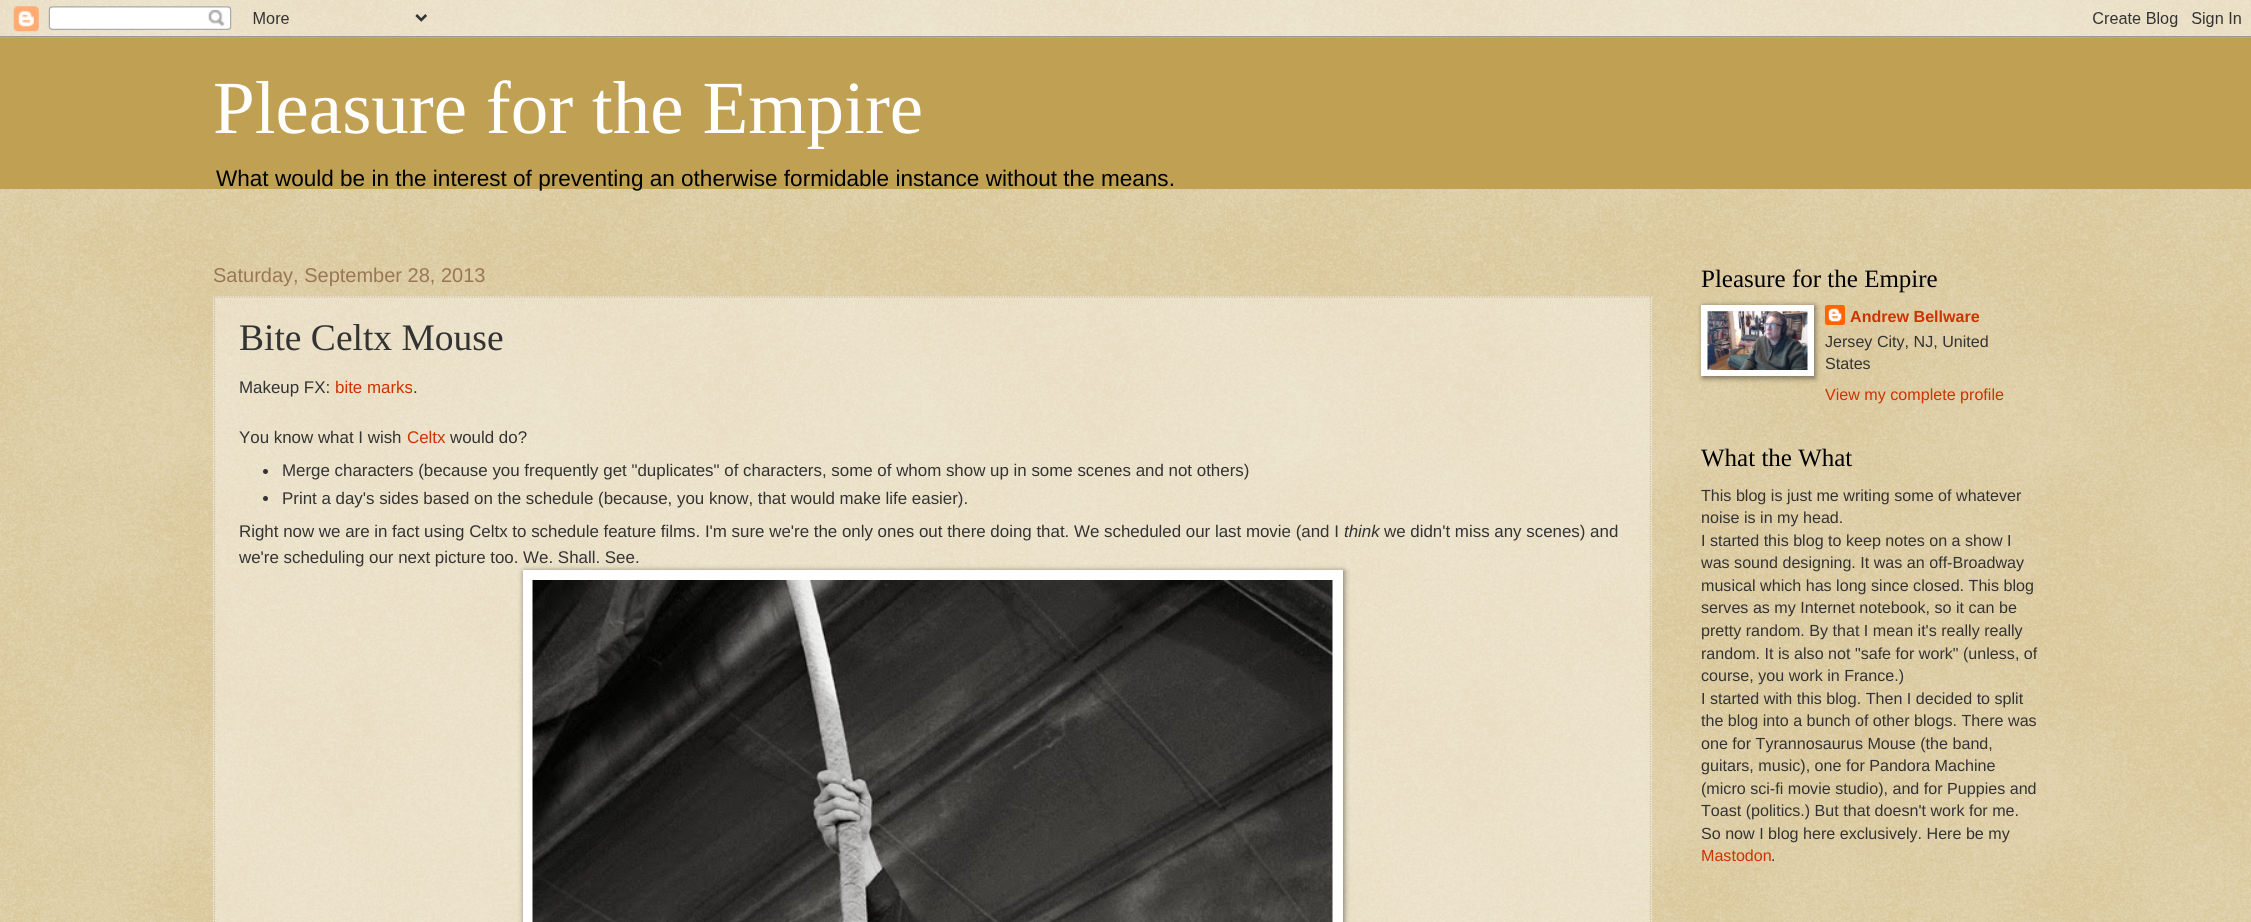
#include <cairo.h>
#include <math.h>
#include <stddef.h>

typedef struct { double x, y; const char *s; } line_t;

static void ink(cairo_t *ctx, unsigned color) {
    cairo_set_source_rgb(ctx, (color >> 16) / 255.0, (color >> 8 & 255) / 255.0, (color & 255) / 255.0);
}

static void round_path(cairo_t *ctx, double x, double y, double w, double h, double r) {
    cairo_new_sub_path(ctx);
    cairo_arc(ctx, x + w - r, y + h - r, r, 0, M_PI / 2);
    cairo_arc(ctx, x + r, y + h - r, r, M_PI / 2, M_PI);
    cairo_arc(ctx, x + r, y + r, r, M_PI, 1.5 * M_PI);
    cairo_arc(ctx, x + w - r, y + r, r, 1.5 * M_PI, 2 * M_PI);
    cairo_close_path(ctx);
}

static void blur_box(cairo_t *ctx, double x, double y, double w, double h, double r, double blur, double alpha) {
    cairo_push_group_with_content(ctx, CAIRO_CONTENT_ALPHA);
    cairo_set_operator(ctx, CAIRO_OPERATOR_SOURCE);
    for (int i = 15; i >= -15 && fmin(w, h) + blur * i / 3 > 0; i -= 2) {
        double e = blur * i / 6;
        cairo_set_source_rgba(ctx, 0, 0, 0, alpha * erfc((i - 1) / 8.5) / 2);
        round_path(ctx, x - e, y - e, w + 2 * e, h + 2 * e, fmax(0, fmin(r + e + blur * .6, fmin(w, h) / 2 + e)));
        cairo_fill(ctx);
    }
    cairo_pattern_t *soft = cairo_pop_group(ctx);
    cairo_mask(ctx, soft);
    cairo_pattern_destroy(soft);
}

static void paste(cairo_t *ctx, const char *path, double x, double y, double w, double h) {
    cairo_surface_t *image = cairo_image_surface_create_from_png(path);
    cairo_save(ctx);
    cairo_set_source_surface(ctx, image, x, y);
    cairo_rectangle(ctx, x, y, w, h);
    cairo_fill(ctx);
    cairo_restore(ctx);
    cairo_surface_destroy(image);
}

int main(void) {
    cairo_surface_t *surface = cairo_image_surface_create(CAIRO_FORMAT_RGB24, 2251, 922);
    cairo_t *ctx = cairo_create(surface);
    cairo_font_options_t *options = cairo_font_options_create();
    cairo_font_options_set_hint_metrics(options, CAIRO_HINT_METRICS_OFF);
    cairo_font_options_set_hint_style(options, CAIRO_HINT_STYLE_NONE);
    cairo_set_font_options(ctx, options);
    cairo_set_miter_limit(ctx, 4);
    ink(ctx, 0xC0A154);
    cairo_paint(ctx);
    paste(ctx, "media/1.png", 0, 0, 2251, 922);
    paste(ctx, "media/2.png", 0, 0, 2251, 38);
    ink(ctx, 0xC0A154);
    cairo_rectangle(ctx, 0, 38, 2251, 151);
    cairo_fill(ctx);
    cairo_select_font_face(ctx, "Liberation Serif", CAIRO_FONT_SLANT_NORMAL, CAIRO_FONT_WEIGHT_NORMAL);
    cairo_set_font_size(ctx, 75);
    ink(ctx, 0xFFFFFF);
    cairo_move_to(ctx, 213, 133);
    cairo_show_text(ctx, "Pleasure for the Empire");
    cairo_select_font_face(ctx, "Liberation Sans", CAIRO_FONT_SLANT_NORMAL, CAIRO_FONT_WEIGHT_NORMAL);
    cairo_set_font_size(ctx, 22.55);
    ink(ctx, 0x000000);
    cairo_move_to(ctx, 216, 186);
    cairo_show_text(ctx, "What would be in the interest of preventing an otherwise formidable instance without the means.");
    cairo_set_font_size(ctx, 20);
    ink(ctx, 0x997755);
    cairo_move_to(ctx, 213, 282);
    cairo_show_text(ctx, "Saturday, September 28, 2013");
    cairo_set_source_rgba(ctx, 1, 1, 1, 0.4);
    cairo_rectangle(ctx, 213, 296, 1439, 626);
    cairo_fill(ctx);
    cairo_new_path(ctx);
    cairo_move_to(ctx, 214, 297);
    cairo_line_to(ctx, 1651, 297);
    ink(ctx, 0xCCBB99);
    cairo_set_line_width(ctx, 1.2);
    cairo_set_dash(ctx, (double[]){1.25, 1.25}, 2, 0);
    cairo_stroke(ctx);
    cairo_new_path(ctx);
    cairo_move_to(ctx, 1650.5, 296);
    cairo_line_to(ctx, 1650.5, 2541);
    cairo_stroke(ctx);
    cairo_new_path(ctx);
    cairo_move_to(ctx, 214.5, 296);
    cairo_line_to(ctx, 214.5, 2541);
    cairo_stroke(ctx);
    cairo_select_font_face(ctx, "Liberation Serif", CAIRO_FONT_SLANT_NORMAL, CAIRO_FONT_WEIGHT_NORMAL);
    cairo_set_font_size(ctx, 37.5);
    ink(ctx, 0x333333);
    cairo_move_to(ctx, 239, 350);
    cairo_show_text(ctx, "Bite Celtx Mouse");
    cairo_select_font_face(ctx, "Liberation Sans", CAIRO_FONT_SLANT_NORMAL, CAIRO_FONT_WEIGHT_NORMAL);
    cairo_set_font_size(ctx, 16.9);
    cairo_move_to(ctx, 239, 393);
    cairo_show_text(ctx, "Makeup FX:");
    ink(ctx, 0xCC3300);
    cairo_move_to(ctx, 335, 393);
    cairo_show_text(ctx, "bite marks");
    ink(ctx, 0x333333);
    cairo_move_to(ctx, 413, 393);
    cairo_show_text(ctx, ".");
    cairo_move_to(ctx, 239, 443);
    cairo_show_text(ctx, "You know what I wish");
    ink(ctx, 0xCC3300);
    cairo_move_to(ctx, 407, 443);
    cairo_show_text(ctx, "Celtx");
    ink(ctx, 0x333333);
    cairo_move_to(ctx, 450, 443);
    cairo_show_text(ctx, "would do?");
    cairo_new_path(ctx);
    cairo_arc(ctx, 265.5, 471.5, 2.5, 0, 2 * M_PI);
    cairo_fill(ctx);
    cairo_move_to(ctx, 282, 476);
    cairo_show_text(ctx, "Merge characters (because you frequently get \"duplicates\" of characters, some of whom show up in some scenes and not others)");
    cairo_new_path(ctx);
    cairo_arc(ctx, 265.5, 498.5, 2.5, 0, 2 * M_PI);
    cairo_fill(ctx);
    cairo_move_to(ctx, 282, 504);
    cairo_show_text(ctx, "Print a day's sides based on the schedule (because, you know, that would make life easier).");
    cairo_move_to(ctx, 239, 537);
    cairo_show_text(ctx, "Right now we are in fact using Celtx to schedule feature films. I'm sure we're the only ones out there doing that. We scheduled our last movie (and I");
    cairo_select_font_face(ctx, "Liberation Sans", CAIRO_FONT_SLANT_ITALIC, CAIRO_FONT_WEIGHT_NORMAL);
    cairo_move_to(ctx, 1344, 537);
    cairo_show_text(ctx, "think");
    cairo_select_font_face(ctx, "Liberation Sans", CAIRO_FONT_SLANT_NORMAL, CAIRO_FONT_WEIGHT_NORMAL);
    cairo_move_to(ctx, 1384, 537);
    cairo_show_text(ctx, "we didn't miss any scenes) and");
    cairo_move_to(ctx, 239, 563);
    cairo_show_text(ctx, "we're scheduling our next picture too. We. Shall. See.");
    ink(ctx, 0x000000);
    blur_box(ctx, 524, 571, 820, 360, 0, 3, 0.5);
    ink(ctx, 0xFFFFFF);
    cairo_rectangle(ctx, 523, 570, 820, 352);
    cairo_fill(ctx);
    paste(ctx, "media/3.png", 532, 580, 801, 342);
    cairo_select_font_face(ctx, "Liberation Serif", CAIRO_FONT_SLANT_NORMAL, CAIRO_FONT_WEIGHT_NORMAL);
    cairo_set_font_size(ctx, 25);
    ink(ctx, 0x000000);
    cairo_move_to(ctx, 1701, 287);
    cairo_show_text(ctx, "Pleasure for the Empire");
    ink(ctx, 0x000000);
    blur_box(ctx, 1703, 306, 112, 72, 0, 3, 0.5);
    ink(ctx, 0xFFFFFF);
    cairo_rectangle(ctx, 1701, 305, 113, 71);
    cairo_fill(ctx);
    paste(ctx, "media/4.png", 1707, 311, 101, 59);
    paste(ctx, "media/5.png", 1825, 305, 20, 20);
    cairo_select_font_face(ctx, "Liberation Sans", CAIRO_FONT_SLANT_NORMAL, CAIRO_FONT_WEIGHT_BOLD);
    cairo_set_font_size(ctx, 16.1);
    ink(ctx, 0xCC3300);
    cairo_move_to(ctx, 1850, 322);
    cairo_show_text(ctx, "Andrew Bellware");
    cairo_select_font_face(ctx, "Liberation Sans", CAIRO_FONT_SLANT_NORMAL, CAIRO_FONT_WEIGHT_NORMAL);
    ink(ctx, 0x333333);
    cairo_move_to(ctx, 1825, 347);
    cairo_show_text(ctx, "Jersey City, NJ, United");
    cairo_move_to(ctx, 1825, 369);
    cairo_show_text(ctx, "States");
    ink(ctx, 0xCC3300);
    cairo_move_to(ctx, 1825, 400);
    cairo_show_text(ctx, "View my complete profile");
    cairo_select_font_face(ctx, "Liberation Serif", CAIRO_FONT_SLANT_NORMAL, CAIRO_FONT_WEIGHT_NORMAL);
    cairo_set_font_size(ctx, 25);
    ink(ctx, 0x000000);
    cairo_move_to(ctx, 1701, 466);
    cairo_show_text(ctx, "What the What");
    cairo_select_font_face(ctx, "Liberation Sans", CAIRO_FONT_SLANT_NORMAL, CAIRO_FONT_WEIGHT_NORMAL);
    cairo_set_font_size(ctx, 16.1);
    ink(ctx, 0x333333);
    {
        static const line_t items[] = {
            {1701, 501, "This blog is just me writing some of whatever"},
            {1701, 523, "noise is in my head."},
            {1701, 546, "I started this blog to keep notes on a show I"},
            {1701, 568, "was sound designing. It was an off-Broadway"},
            {1701, 591, "musical which has long since closed. This blog"},
            {1701, 613, "serves as my Internet notebook, so it can be"},
            {1701, 636, "pretty random. By that I mean it's really really"},
            {1701, 659, "random. It is also not \"safe for work\" (unless, of"},
            {1701, 681, "course, you work in France.)"},
            {1701, 704, "I started with this blog. Then I decided to split"},
            {1701, 726, "the blog into a bunch of other blogs. There was"},
            {1701, 749, "one for Tyrannosaurus Mouse (the band,"},
            {1701, 771, "guitars, music), one for Pandora Machine"},
            {1701, 794, "(micro sci-fi movie studio), and for Puppies and"},
            {1701, 816, "Toast (politics.) But that doesn't work for me."},
            {1701, 839, "So now I blog here exclusively. Here be my"},
        };
        for (size_t i = 0; i < sizeof items / sizeof *items; i++) {
            cairo_move_to(ctx, items[i].x, items[i].y);
            cairo_show_text(ctx, items[i].s);
        }
    }
    ink(ctx, 0xCC3300);
    cairo_move_to(ctx, 1701, 861);
    cairo_show_text(ctx, "Mastodon");
    ink(ctx, 0x333333);
    cairo_move_to(ctx, 1771, 861);
    cairo_show_text(ctx, ".");
    cairo_surface_write_to_png(surface, "image.png");
    cairo_font_options_destroy(options);
    cairo_destroy(ctx);
    cairo_surface_destroy(surface);
    return 0;
}
